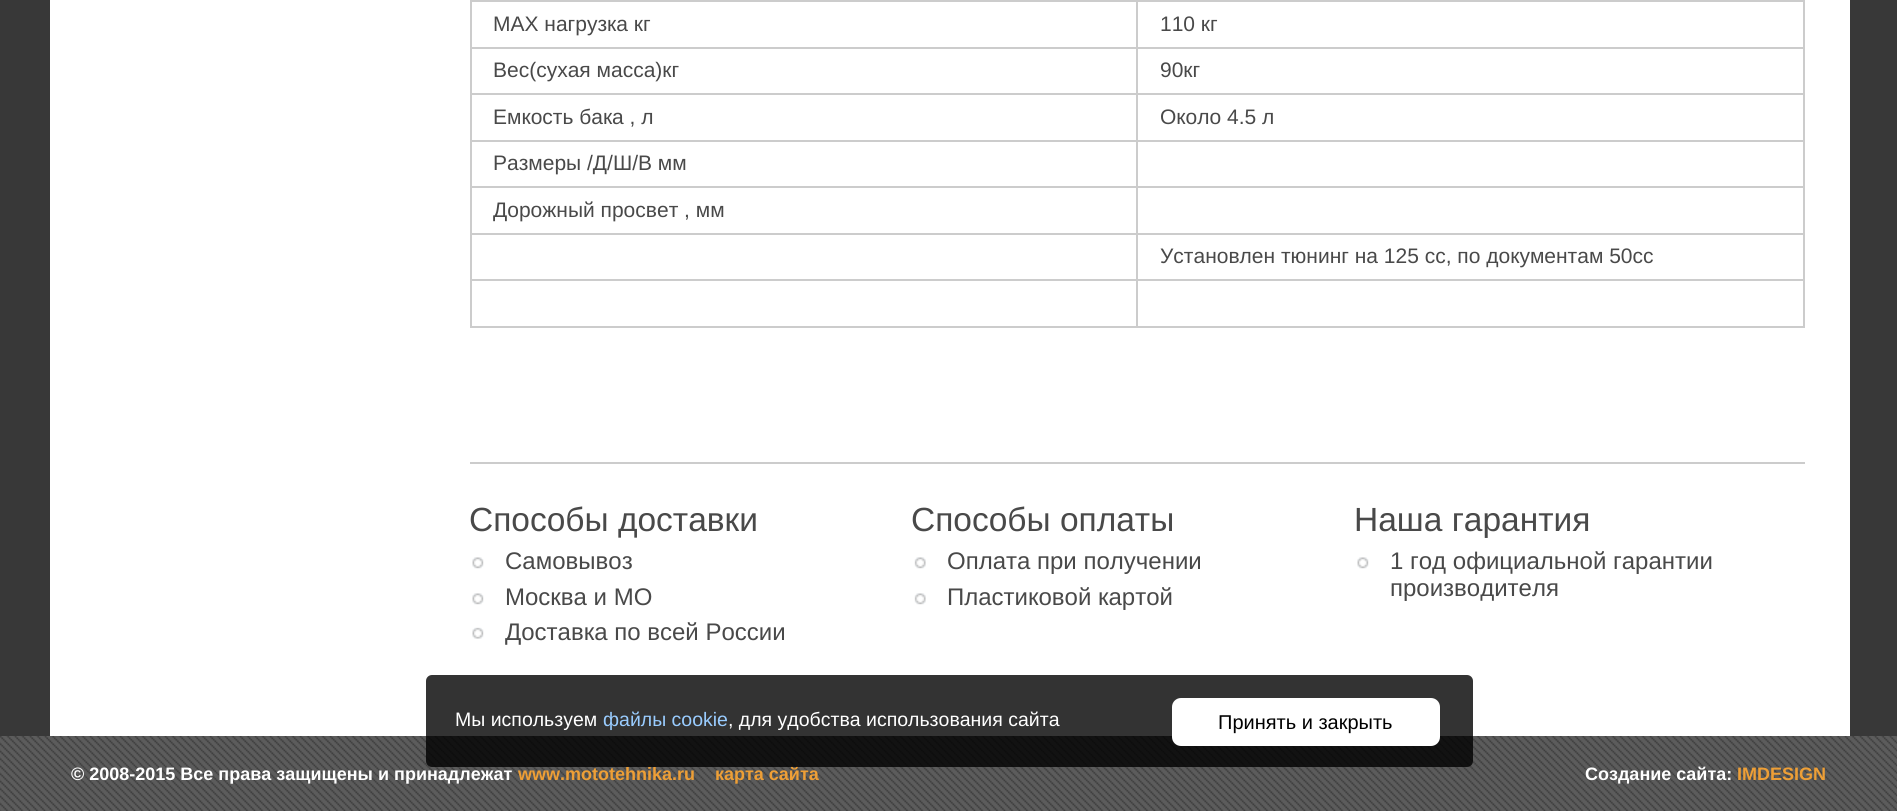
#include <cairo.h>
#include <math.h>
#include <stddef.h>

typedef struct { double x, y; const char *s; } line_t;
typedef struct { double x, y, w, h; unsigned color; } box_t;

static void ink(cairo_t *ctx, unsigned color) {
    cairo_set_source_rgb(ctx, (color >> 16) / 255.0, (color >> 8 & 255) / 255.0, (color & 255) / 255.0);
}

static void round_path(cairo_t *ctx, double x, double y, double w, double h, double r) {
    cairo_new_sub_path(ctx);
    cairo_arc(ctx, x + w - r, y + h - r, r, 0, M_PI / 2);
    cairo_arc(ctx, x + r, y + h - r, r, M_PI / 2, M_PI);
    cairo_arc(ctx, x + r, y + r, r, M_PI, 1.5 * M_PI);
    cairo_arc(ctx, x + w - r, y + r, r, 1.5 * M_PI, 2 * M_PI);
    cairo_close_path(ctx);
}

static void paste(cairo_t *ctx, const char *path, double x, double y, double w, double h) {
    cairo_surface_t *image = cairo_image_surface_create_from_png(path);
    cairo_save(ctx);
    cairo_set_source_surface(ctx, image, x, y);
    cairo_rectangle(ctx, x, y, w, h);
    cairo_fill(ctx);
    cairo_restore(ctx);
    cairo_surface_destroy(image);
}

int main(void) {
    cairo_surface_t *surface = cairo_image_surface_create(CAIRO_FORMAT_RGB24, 1897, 811);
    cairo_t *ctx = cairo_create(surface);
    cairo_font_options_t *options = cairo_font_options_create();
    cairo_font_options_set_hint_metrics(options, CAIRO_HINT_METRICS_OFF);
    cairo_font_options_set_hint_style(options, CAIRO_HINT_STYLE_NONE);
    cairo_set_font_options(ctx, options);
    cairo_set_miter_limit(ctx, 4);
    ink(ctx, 0x383838);
    cairo_paint(ctx);
    {
        static const box_t items[] = {
            {50, 0, 1800, 736, 0xFFFFFF},
            {1136, 0, 669, 2, 0xCCCCCC},
            {1136, 47, 669, 2, 0xCCCCCC},
            {1136, 93, 669, 2, 0xCCCCCC},
            {1136, 140, 669, 2, 0xCCCCCC},
            {1136, 186, 669, 2, 0xCCCCCC},
            {1136, 233, 669, 2, 0xCCCCCC},
            {1136, 279, 669, 2, 0xCCCCCC},
            {1803, 279, 2, 48, 0xCCCCCC},
            {1136, 326, 669, 2, 0xCCCCCC},
            {1136, 279, 2, 48, 0xCCCCCC},
            {470, 279, 667, 2, 0xCCCCCC},
            {1136, 233, 2, 48, 0xCCCCCC},
            {470, 233, 667, 2, 0xCCCCCC},
            {1136, 186, 2, 48, 0xCCCCCC},
            {470, 186, 667, 2, 0xCCCCCC},
            {1136, 140, 2, 48, 0xCCCCCC},
            {470, 140, 667, 2, 0xCCCCCC},
            {1136, 93, 2, 48, 0xCCCCCC},
            {470, 93, 667, 2, 0xCCCCCC},
            {1136, 47, 2, 48, 0xCCCCCC},
            {470, 47, 667, 2, 0xCCCCCC},
            {1136, 0, 2, 48, 0xCCCCCC},
            {470, 0, 667, 2, 0xCCCCCC},
            {470, 326, 667, 2, 0xCCCCCC},
            {470, 279, 2, 48, 0xCCCCCC},
            {470, 233, 2, 48, 0xCCCCCC},
            {470, 186, 2, 48, 0xCCCCCC},
            {470, 140, 2, 48, 0xCCCCCC},
            {470, 93, 2, 48, 0xCCCCCC},
            {470, 47, 2, 48, 0xCCCCCC},
            {470, 0, 2, 48, 0xCCCCCC},
        };
        for (size_t i = 0; i < sizeof items / sizeof *items; i++) {
            ink(ctx, items[i].color);
            cairo_rectangle(ctx, items[i].x, items[i].y, items[i].w, items[i].h);
            cairo_fill(ctx);
        }
    }
    cairo_select_font_face(ctx, "Liberation Sans", CAIRO_FONT_SLANT_NORMAL, CAIRO_FONT_WEIGHT_NORMAL);
    cairo_set_font_size(ctx, 21);
    ink(ctx, 0x494949);
    cairo_move_to(ctx, 493, 31);
    cairo_show_text(ctx, "МАХ нагрузка кг");
    {
        static const box_t items[] = {
            {1803, 233, 2, 48, 0xCCCCCC},
            {1803, 186, 2, 48, 0xCCCCCC},
            {1803, 140, 2, 48, 0xCCCCCC},
            {1803, 93, 2, 48, 0xCCCCCC},
            {1803, 47, 2, 48, 0xCCCCCC},
            {1803, 0, 2, 48, 0xCCCCCC},
        };
        for (size_t i = 0; i < sizeof items / sizeof *items; i++) {
            ink(ctx, items[i].color);
            cairo_rectangle(ctx, items[i].x, items[i].y, items[i].w, items[i].h);
            cairo_fill(ctx);
        }
    }
    ink(ctx, 0x494949);
    {
        static const line_t items[] = {
            {1160, 31, "110 кг"},
            {493, 77, "Вес(сухая масса)кг"},
            {1160, 77, "90кг"},
            {493, 124, "Емкость бака , л"},
            {1160, 124, "Около 4.5 л"},
            {493, 170, "Размеры /Д/Ш/В мм"},
            {493, 217, "Дорожный просвет , мм"},
            {1160, 263, "Установлен тюнинг на 125 сс, по документам 50сс"},
        };
        for (size_t i = 0; i < sizeof items / sizeof *items; i++) {
            cairo_move_to(ctx, items[i].x, items[i].y);
            cairo_show_text(ctx, items[i].s);
        }
    }
    ink(ctx, 0xCCCCCC);
    cairo_rectangle(ctx, 470, 462, 1335, 2);
    cairo_fill(ctx);
    cairo_set_font_size(ctx, 33.5);
    ink(ctx, 0x494949);
    cairo_move_to(ctx, 469, 531);
    cairo_show_text(ctx, "Способы доставки");
    paste(ctx, "media/1.png", 472, 557, 12, 12);
    cairo_set_font_size(ctx, 24);
    cairo_move_to(ctx, 505, 569);
    cairo_show_text(ctx, "Самовывоз");
    paste(ctx, "media/1.png", 472, 593, 12, 12);
    cairo_move_to(ctx, 505, 605);
    cairo_show_text(ctx, "Москва и МО");
    paste(ctx, "media/2.png", 472, 627, 12, 12);
    cairo_move_to(ctx, 505, 640);
    cairo_show_text(ctx, "Доставка по всей России");
    cairo_set_font_size(ctx, 33.5);
    cairo_move_to(ctx, 911, 531);
    cairo_show_text(ctx, "Способы оплаты");
    paste(ctx, "media/3.png", 914, 557, 12, 12);
    cairo_set_font_size(ctx, 24);
    cairo_move_to(ctx, 947, 569);
    cairo_show_text(ctx, "Оплата при получении");
    paste(ctx, "media/3.png", 914, 593, 12, 12);
    cairo_move_to(ctx, 947, 605);
    cairo_show_text(ctx, "Пластиковой картой");
    cairo_set_font_size(ctx, 33.5);
    cairo_move_to(ctx, 1354, 531);
    cairo_show_text(ctx, "Наша гарантия");
    paste(ctx, "media/1.png", 1357, 557, 12, 12);
    cairo_set_font_size(ctx, 24);
    cairo_move_to(ctx, 1390, 569);
    cairo_show_text(ctx, "1 год официальной гарантии");
    cairo_move_to(ctx, 1390, 596);
    cairo_show_text(ctx, "производителя");
    paste(ctx, "media/4.png", 0, 736, 1897, 75);
    cairo_select_font_face(ctx, "Liberation Sans", CAIRO_FONT_SLANT_NORMAL, CAIRO_FONT_WEIGHT_BOLD);
    cairo_set_font_size(ctx, 18);
    ink(ctx, 0xEE9F36);
    cairo_move_to(ctx, 518, 780);
    cairo_show_text(ctx, "www.mototehnika.ru");
    cairo_move_to(ctx, 715, 780);
    cairo_show_text(ctx, "карта сайта");
    cairo_set_source_rgba(ctx, 0, 0, 0, 0.8);
    round_path(ctx, 426, 675, 1047, 92, 6);
    cairo_fill(ctx);
    cairo_select_font_face(ctx, "Liberation Sans", CAIRO_FONT_SLANT_NORMAL, CAIRO_FONT_WEIGHT_NORMAL);
    cairo_set_font_size(ctx, 19.5);
    ink(ctx, 0xFFFFFF);
    cairo_move_to(ctx, 455, 726);
    cairo_show_text(ctx, "Мы используем");
    ink(ctx, 0x99CCFF);
    cairo_move_to(ctx, 603, 726);
    cairo_show_text(ctx, "файлы cookie");
    ink(ctx, 0xFFFFFF);
    cairo_move_to(ctx, 728, 726);
    cairo_show_text(ctx, ", для удобства использования сайта");
    round_path(ctx, 1173, 699, 266, 46, 8);
    cairo_fill_preserve(ctx);
    cairo_stroke(ctx);
    cairo_set_font_size(ctx, 20);
    ink(ctx, 0x000000);
    cairo_move_to(ctx, 1218, 729);
    cairo_show_text(ctx, "Принять и закрыть");
    cairo_select_font_face(ctx, "Liberation Sans", CAIRO_FONT_SLANT_NORMAL, CAIRO_FONT_WEIGHT_BOLD);
    cairo_set_font_size(ctx, 18);
    ink(ctx, 0xFFFFFF);
    cairo_move_to(ctx, 71, 780);
    cairo_show_text(ctx, "© 2008-2015 Все права защищены и принадлежат");
    cairo_move_to(ctx, 1585, 780);
    cairo_show_text(ctx, "Создание сайта:");
    ink(ctx, 0xEE9F36);
    cairo_move_to(ctx, 1737, 780);
    cairo_show_text(ctx, "IMDESIGN");
    cairo_surface_write_to_png(surface, "image.png");
    cairo_font_options_destroy(options);
    cairo_destroy(ctx);
    cairo_surface_destroy(surface);
    return 0;
}
